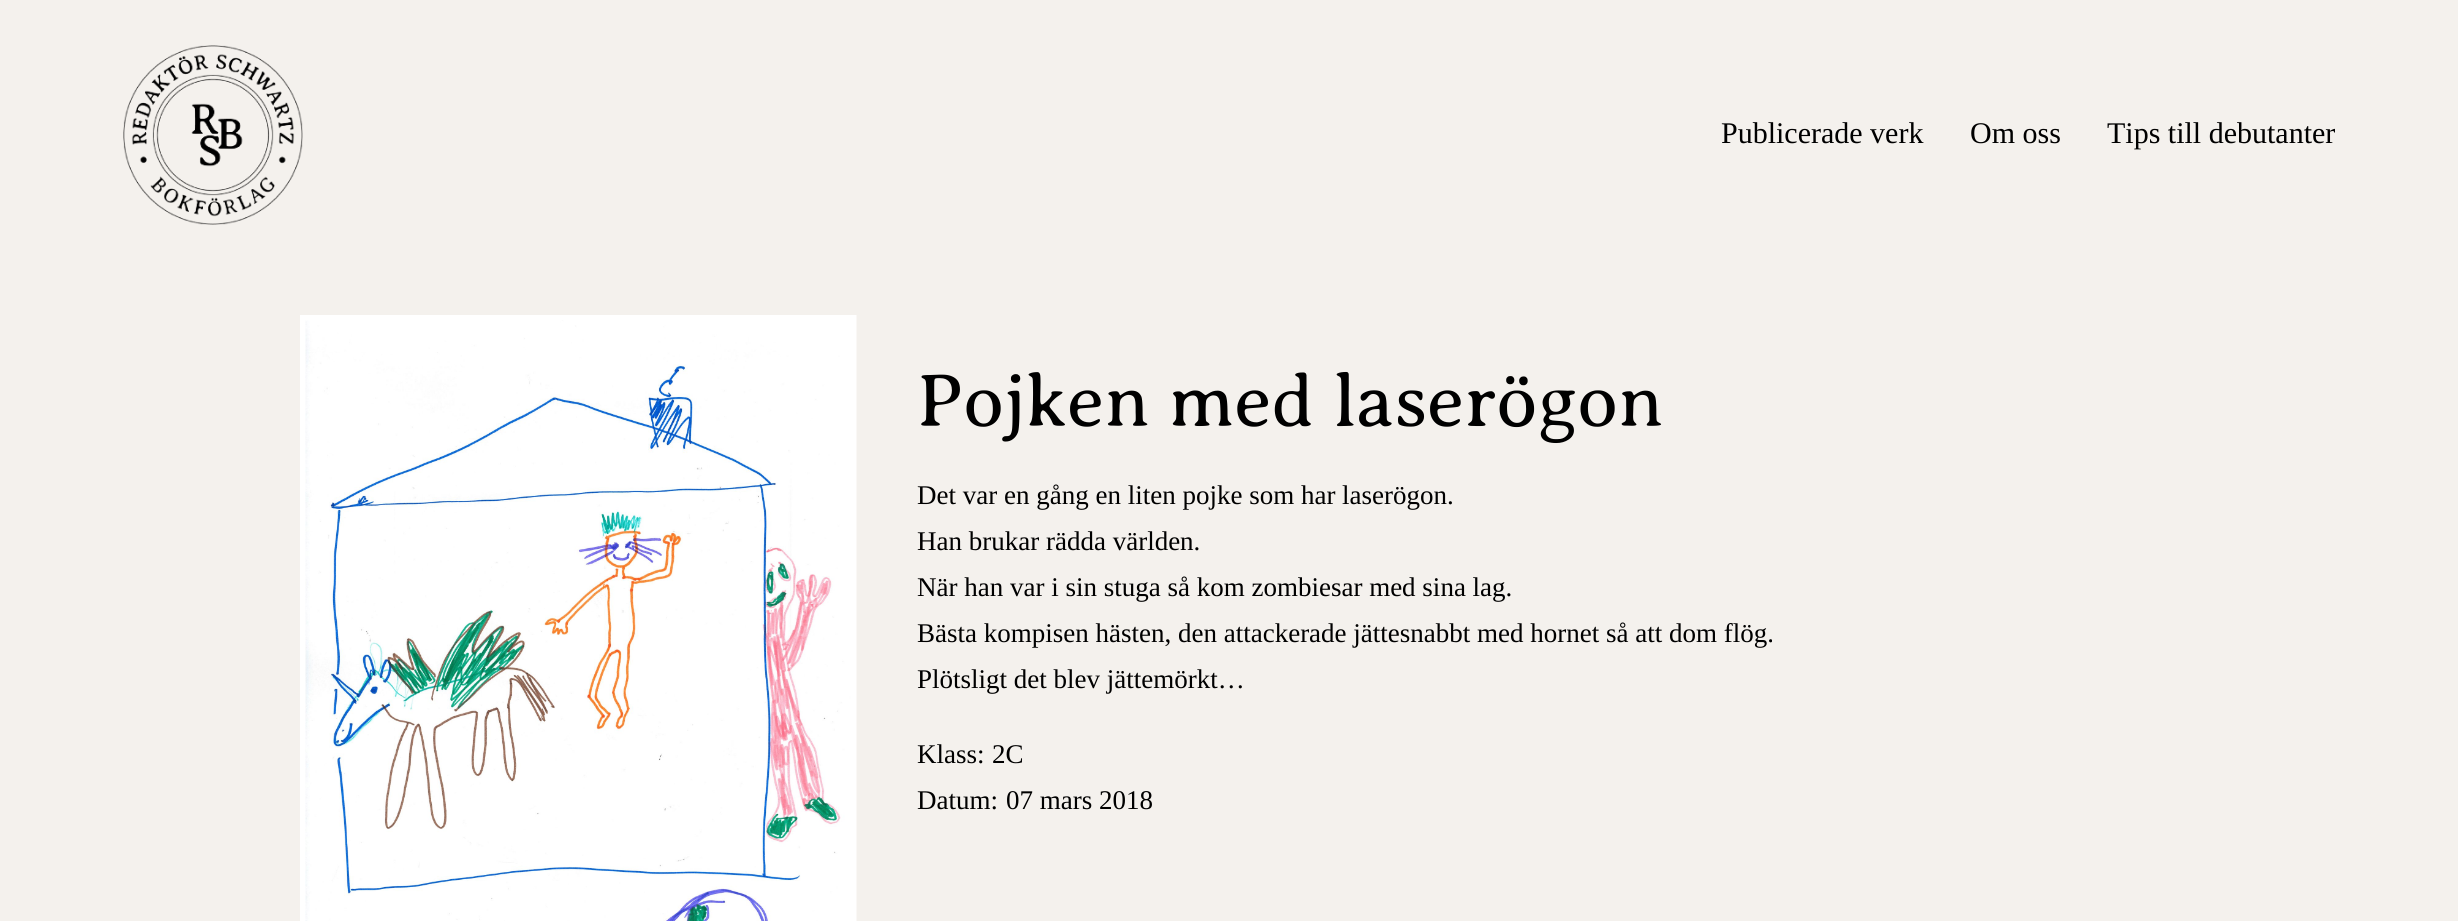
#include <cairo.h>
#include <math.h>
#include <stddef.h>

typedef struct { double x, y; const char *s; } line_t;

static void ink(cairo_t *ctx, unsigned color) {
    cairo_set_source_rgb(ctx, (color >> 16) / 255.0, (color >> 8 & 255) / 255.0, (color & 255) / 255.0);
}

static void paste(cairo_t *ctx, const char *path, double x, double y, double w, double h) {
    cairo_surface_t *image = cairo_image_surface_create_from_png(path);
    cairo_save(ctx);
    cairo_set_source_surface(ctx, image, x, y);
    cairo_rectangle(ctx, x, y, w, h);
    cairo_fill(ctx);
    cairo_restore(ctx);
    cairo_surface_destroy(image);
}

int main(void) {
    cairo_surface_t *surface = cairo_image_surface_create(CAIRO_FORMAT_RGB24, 2458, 921);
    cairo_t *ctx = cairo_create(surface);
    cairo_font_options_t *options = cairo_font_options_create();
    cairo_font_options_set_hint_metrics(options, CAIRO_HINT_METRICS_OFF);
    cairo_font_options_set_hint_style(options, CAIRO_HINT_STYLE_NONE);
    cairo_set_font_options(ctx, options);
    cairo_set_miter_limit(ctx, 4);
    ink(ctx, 0xF4F1ED);
    cairo_paint(ctx);
    paste(ctx, "media/1.png", 123, 45, 180, 180);
    cairo_select_font_face(ctx, "Liberation Serif", CAIRO_FONT_SLANT_NORMAL, CAIRO_FONT_WEIGHT_NORMAL);
    cairo_set_font_size(ctx, 30);
    ink(ctx, 0x000000);
    {
        static const line_t items[] = {
            {1721, 143, "Publicerade verk"},
            {1970, 143, "Om oss"},
            {2107, 143, "Tips till debutanter"},
        };
        for (size_t i = 0; i < sizeof items / sizeof *items; i++) {
            cairo_move_to(ctx, items[i].x, items[i].y);
            cairo_show_text(ctx, items[i].s);
        }
    }
    paste(ctx, "media/2.png", 300, 315, 557, 606);
    cairo_select_font_face(ctx, "Averia Serif Libre Light", CAIRO_FONT_SLANT_NORMAL, CAIRO_FONT_WEIGHT_NORMAL);
    cairo_set_font_size(ctx, 75);
    cairo_move_to(ctx, 917, 426);
    cairo_show_text(ctx, "Pojken med laserögon");
    cairo_select_font_face(ctx, "Liberation Serif", CAIRO_FONT_SLANT_NORMAL, CAIRO_FONT_WEIGHT_NORMAL);
    cairo_set_font_size(ctx, 27);
    {
        static const line_t items[] = {
            {917, 504, "Det var en gång en liten pojke som har laserögon."},
            {917, 550, "Han brukar rädda världen."},
            {917, 596, "När han var i sin stuga så kom zombiesar med sina lag."},
            {917, 642, "Bästa kompisen hästen, den attackerade jättesnabbt med hornet så att dom flög."},
            {917, 688, "Plötsligt det blev jättemörkt…"},
            {917, 763, "Klass:"},
            {992, 763, "2C"},
            {917, 809, "Datum:"},
            {1006, 809, "07 mars 2018"},
        };
        for (size_t i = 0; i < sizeof items / sizeof *items; i++) {
            cairo_move_to(ctx, items[i].x, items[i].y);
            cairo_show_text(ctx, items[i].s);
        }
    }
    cairo_surface_write_to_png(surface, "image.png");
    cairo_font_options_destroy(options);
    cairo_destroy(ctx);
    cairo_surface_destroy(surface);
    return 0;
}
